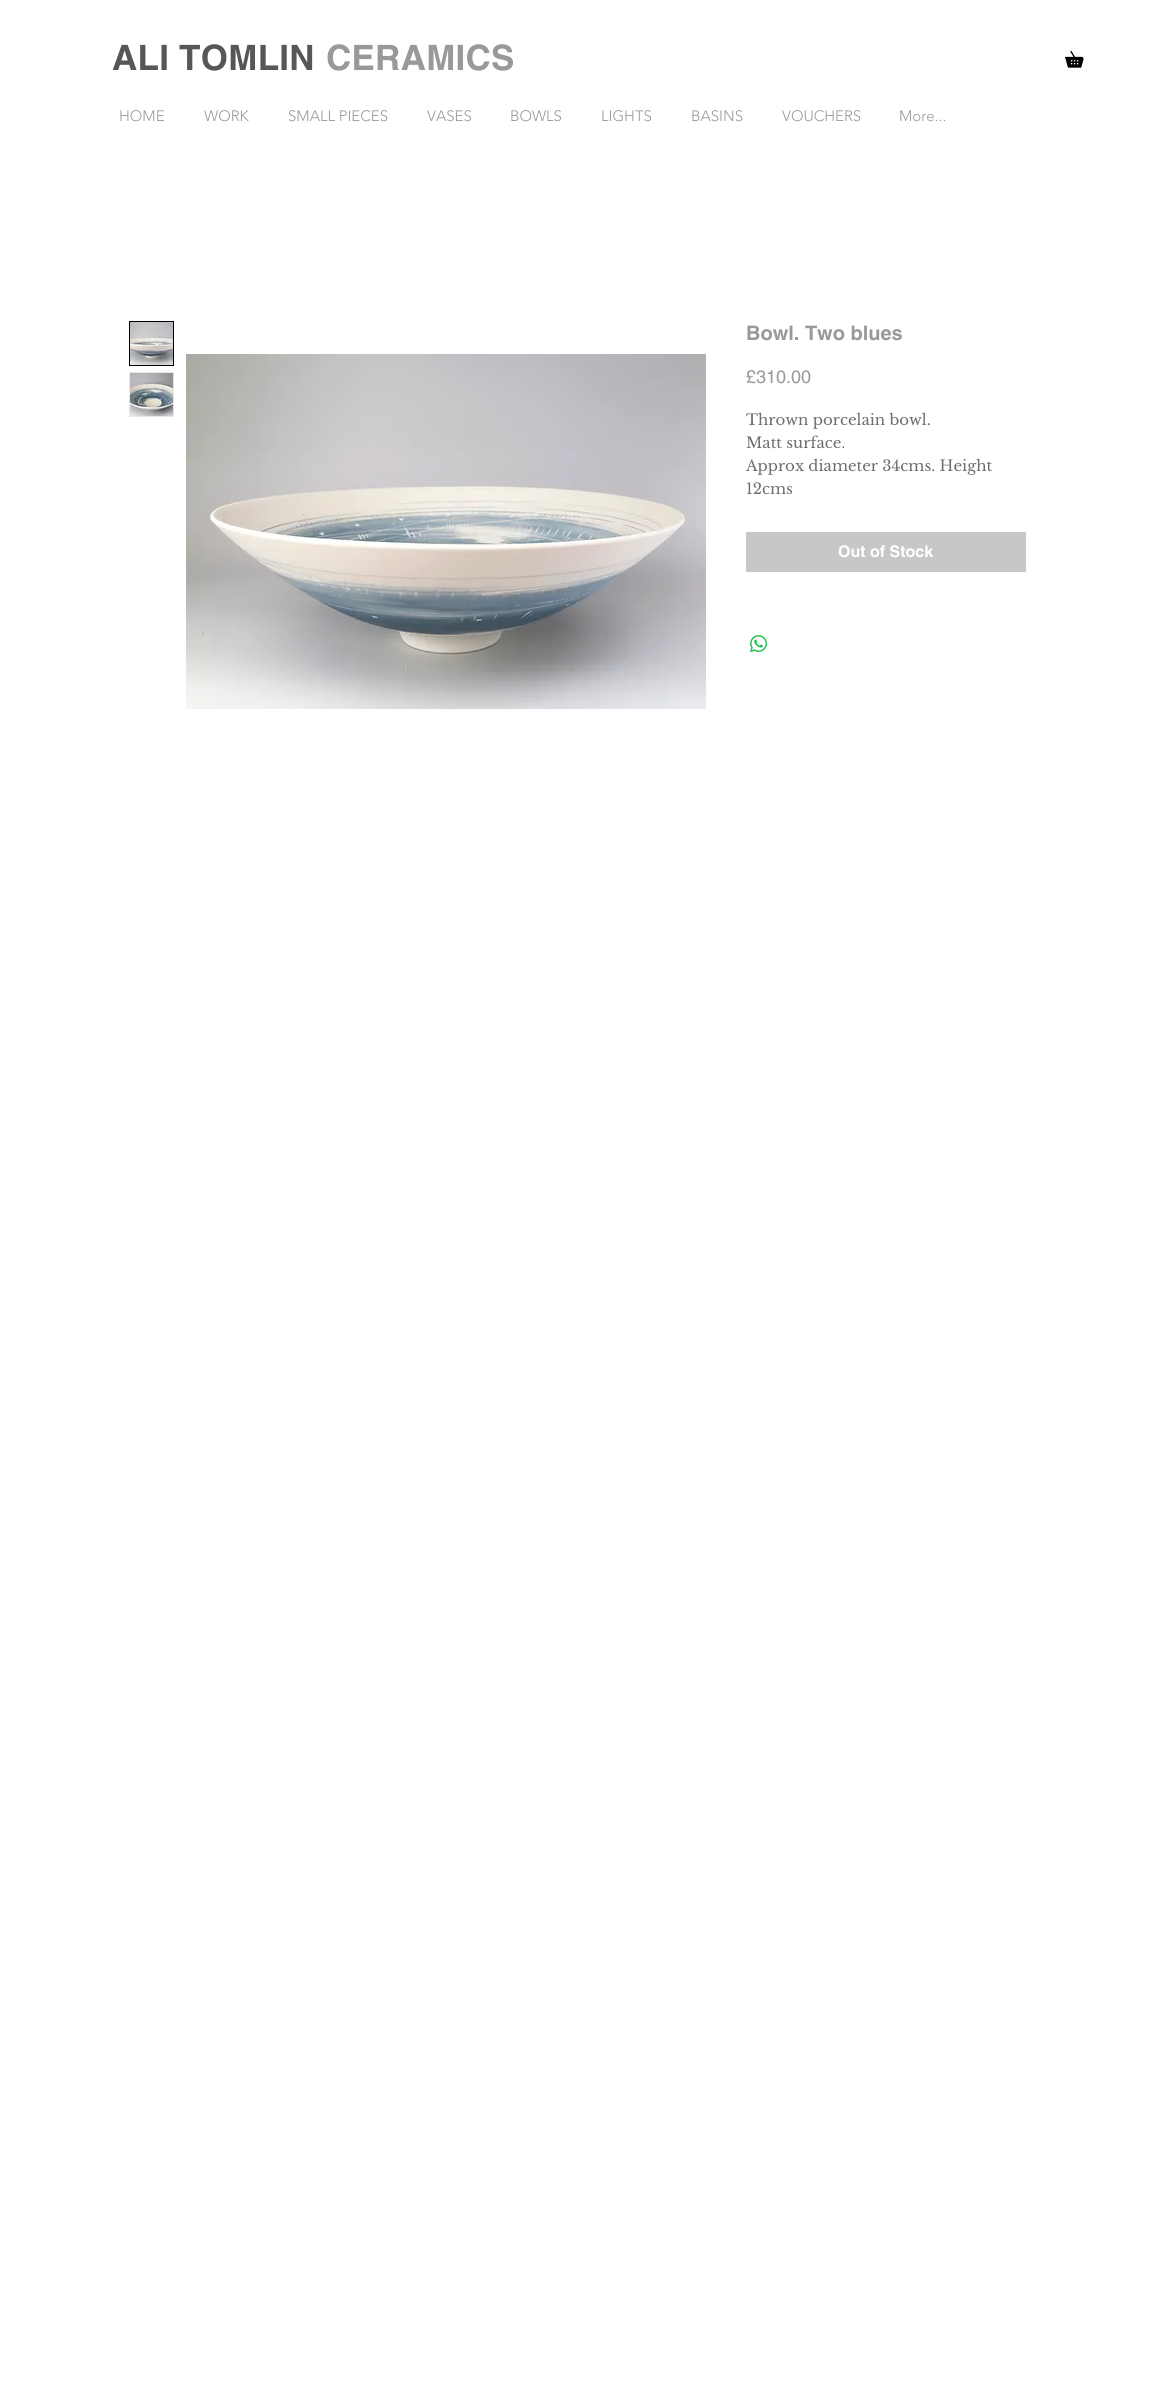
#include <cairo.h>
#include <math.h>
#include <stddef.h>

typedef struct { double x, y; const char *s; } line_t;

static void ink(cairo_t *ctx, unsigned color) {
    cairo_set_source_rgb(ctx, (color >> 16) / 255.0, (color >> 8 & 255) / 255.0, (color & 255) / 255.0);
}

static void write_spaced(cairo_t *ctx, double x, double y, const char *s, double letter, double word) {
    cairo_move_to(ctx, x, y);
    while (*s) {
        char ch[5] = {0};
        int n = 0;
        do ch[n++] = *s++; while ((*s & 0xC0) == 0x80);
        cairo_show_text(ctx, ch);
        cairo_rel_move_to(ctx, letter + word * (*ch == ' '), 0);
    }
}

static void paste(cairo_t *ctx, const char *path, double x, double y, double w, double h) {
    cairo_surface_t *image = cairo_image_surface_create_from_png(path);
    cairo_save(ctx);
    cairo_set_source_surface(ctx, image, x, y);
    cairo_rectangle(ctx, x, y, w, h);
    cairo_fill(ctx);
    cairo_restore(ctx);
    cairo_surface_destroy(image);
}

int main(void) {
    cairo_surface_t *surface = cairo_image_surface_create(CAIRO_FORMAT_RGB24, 1152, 2401);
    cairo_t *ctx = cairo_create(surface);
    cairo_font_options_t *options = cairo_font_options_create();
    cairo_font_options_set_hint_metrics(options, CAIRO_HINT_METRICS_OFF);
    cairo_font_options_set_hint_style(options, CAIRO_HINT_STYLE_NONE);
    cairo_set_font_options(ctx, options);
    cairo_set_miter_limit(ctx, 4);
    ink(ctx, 0xFFFFFF);
    cairo_paint(ctx);
    cairo_select_font_face(ctx, "helvetica", CAIRO_FONT_SLANT_NORMAL, CAIRO_FONT_WEIGHT_BOLD);
    cairo_set_font_size(ctx, 35);
    ink(ctx, 0x575755);
    write_spaced(ctx, 112, 70, "ALI TOMLIN", 0.25, 0);
    ink(ctx, 0x999997);
    write_spaced(ctx, 326, 70, "CERAMICS", 0.25, 0);
    cairo_select_font_face(ctx, "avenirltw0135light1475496 Light", CAIRO_FONT_SLANT_NORMAL, CAIRO_FONT_WEIGHT_NORMAL);
    cairo_set_font_size(ctx, 15);
    {
        static const line_t items[] = {
            {119, 121, "HOME"},
            {204, 121, "WORK"},
            {288, 121, "SMALL PIECES"},
            {427, 121, "VASES"},
            {510, 121, "BOWLS"},
            {601, 121, "LIGHTS"},
            {691, 121, "BASINS"},
            {782, 121, "VOUCHERS"},
            {899, 121, "More..."},
        };
        for (size_t i = 0; i < sizeof items / sizeof *items; i++) {
            cairo_move_to(ctx, items[i].x, items[i].y);
            cairo_show_text(ctx, items[i].s);
        }
    }
    paste(ctx, "media/1.png", 1065, 50, 19, 18);
    cairo_rectangle(ctx, 129.5, 321.5, 44, 44);
    ink(ctx, 0x000000);
    cairo_set_line_width(ctx, 1);
    cairo_stroke(ctx);
    paste(ctx, "media/2.png", 130, 322, 43, 43);
    ink(ctx, 0xE8E6E6);
    cairo_rectangle(ctx, 129, 372, 45, 45);
    cairo_fill(ctx);
    paste(ctx, "media/3.png", 130, 373, 43, 43);
    paste(ctx, "media/4.png", 186, 354, 520, 355);
    cairo_select_font_face(ctx, "helvetica", CAIRO_FONT_SLANT_NORMAL, CAIRO_FONT_WEIGHT_BOLD);
    cairo_set_font_size(ctx, 20);
    ink(ctx, 0x999997);
    cairo_move_to(ctx, 746, 340);
    cairo_show_text(ctx, "Bowl. Two blues");
    cairo_select_font_face(ctx, "helvetica", CAIRO_FONT_SLANT_NORMAL, CAIRO_FONT_WEIGHT_NORMAL);
    cairo_set_font_size(ctx, 18);
    cairo_move_to(ctx, 746, 383);
    cairo_show_text(ctx, "£310.00");
    cairo_select_font_face(ctx, "Libre Baskerville", CAIRO_FONT_SLANT_NORMAL, CAIRO_FONT_WEIGHT_NORMAL);
    cairo_set_font_size(ctx, 15);
    ink(ctx, 0x6E6E6D);
    {
        static const line_t items[] = {
            {746, 425, "Thrown porcelain bowl."},
            {746, 448, "Matt surface."},
            {746, 471, "Approx diameter 34cms. Height"},
            {746, 494, "12cms"},
        };
        for (size_t i = 0; i < sizeof items / sizeof *items; i++) {
            cairo_move_to(ctx, items[i].x, items[i].y);
            cairo_show_text(ctx, items[i].s);
        }
    }
    ink(ctx, 0xC7C7C7);
    cairo_rectangle(ctx, 746, 532, 280, 40);
    cairo_fill(ctx);
    cairo_select_font_face(ctx, "helvetica", CAIRO_FONT_SLANT_NORMAL, CAIRO_FONT_WEIGHT_BOLD);
    cairo_set_font_size(ctx, 16);
    ink(ctx, 0xFFFFFF);
    cairo_move_to(ctx, 838, 557);
    cairo_show_text(ctx, "Out of Stock");
    paste(ctx, "media/5.png", 750, 635, 17, 17);
    cairo_surface_write_to_png(surface, "image.png");
    cairo_font_options_destroy(options);
    cairo_destroy(ctx);
    cairo_surface_destroy(surface);
    return 0;
}
